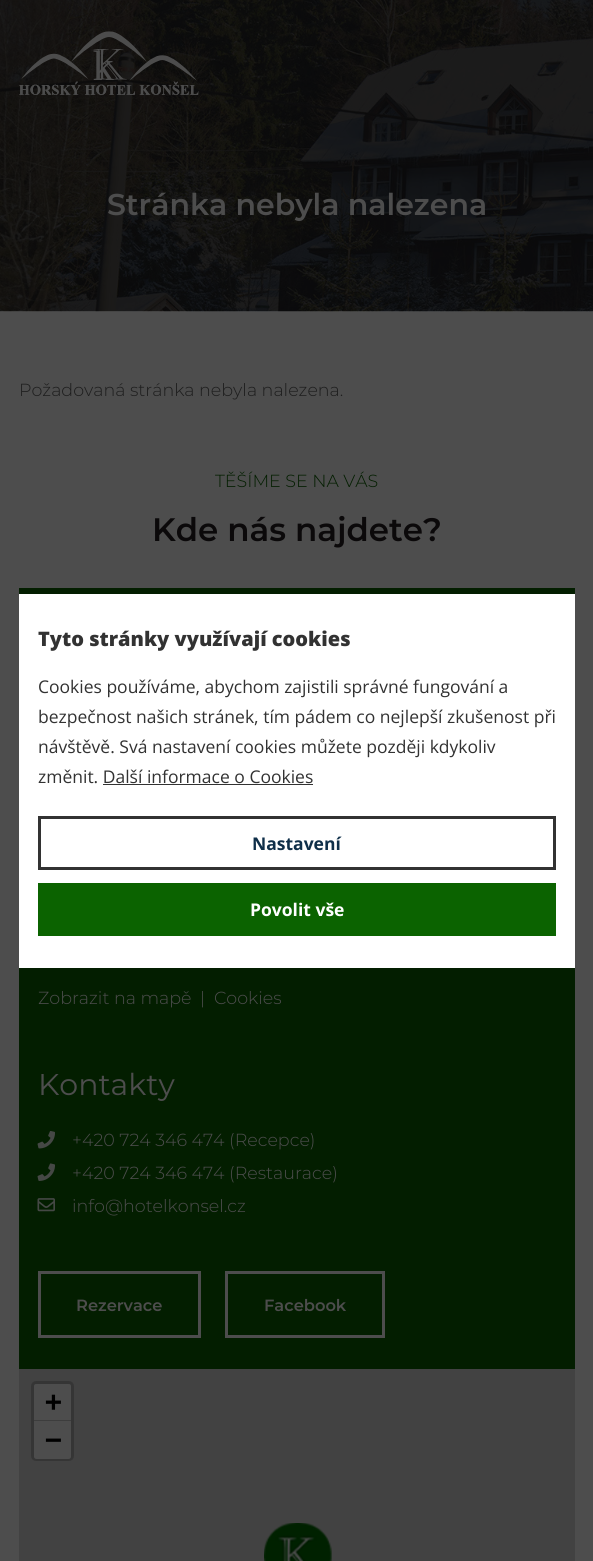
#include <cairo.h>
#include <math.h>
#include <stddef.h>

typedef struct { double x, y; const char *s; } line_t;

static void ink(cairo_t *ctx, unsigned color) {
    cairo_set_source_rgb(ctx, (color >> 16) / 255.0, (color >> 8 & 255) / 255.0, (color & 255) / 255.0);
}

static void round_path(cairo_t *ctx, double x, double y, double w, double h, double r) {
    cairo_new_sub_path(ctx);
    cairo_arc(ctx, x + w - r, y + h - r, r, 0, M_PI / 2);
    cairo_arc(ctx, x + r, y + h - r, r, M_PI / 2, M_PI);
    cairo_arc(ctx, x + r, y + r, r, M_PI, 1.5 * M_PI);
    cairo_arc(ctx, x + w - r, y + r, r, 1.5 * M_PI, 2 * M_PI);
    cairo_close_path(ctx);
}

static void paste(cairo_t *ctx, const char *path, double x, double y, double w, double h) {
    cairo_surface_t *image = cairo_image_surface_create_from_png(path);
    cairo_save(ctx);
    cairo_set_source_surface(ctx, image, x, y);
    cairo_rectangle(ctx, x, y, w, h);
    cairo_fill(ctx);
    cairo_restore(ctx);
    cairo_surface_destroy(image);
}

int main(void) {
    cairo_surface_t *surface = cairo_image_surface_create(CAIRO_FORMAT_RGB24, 593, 1561);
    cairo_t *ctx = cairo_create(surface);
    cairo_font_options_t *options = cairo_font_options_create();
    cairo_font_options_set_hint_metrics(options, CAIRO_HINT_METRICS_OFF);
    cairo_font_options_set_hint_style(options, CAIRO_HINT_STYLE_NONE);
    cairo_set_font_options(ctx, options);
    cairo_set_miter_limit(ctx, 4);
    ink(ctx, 0x4D4D4D);
    cairo_paint(ctx);
    paste(ctx, "media/2.png", 0, 0, 593, 312);
    paste(ctx, "media/1.png", 19, 31, 180, 64);
    cairo_select_font_face(ctx, "Montserrat SemiBold", CAIRO_FONT_SLANT_NORMAL, CAIRO_FONT_WEIGHT_NORMAL);
    cairo_set_font_size(ctx, 30);
    ink(ctx, 0x4D4D4D);
    cairo_move_to(ctx, 107, 215);
    cairo_show_text(ctx, "Stránka nebyla nalezena");
    cairo_select_font_face(ctx, "Montserrat Light", CAIRO_FONT_SLANT_NORMAL, CAIRO_FONT_WEIGHT_NORMAL);
    cairo_set_font_size(ctx, 17.5);
    ink(ctx, 0x1D1D1D);
    cairo_move_to(ctx, 19, 396);
    cairo_show_text(ctx, "Požadovaná stránka nebyla nalezena.");
    ink(ctx, 0x031E00);
    cairo_move_to(ctx, 215, 487);
    cairo_show_text(ctx, "TĚŠÍME SE NA VÁS");
    cairo_select_font_face(ctx, "Montserrat SemiBold", CAIRO_FONT_SLANT_NORMAL, CAIRO_FONT_WEIGHT_NORMAL);
    cairo_set_font_size(ctx, 32.5);
    ink(ctx, 0x0B090A);
    cairo_move_to(ctx, 152, 541);
    cairo_show_text(ctx, "Kde nás najdete?");
    ink(ctx, 0x031E00);
    cairo_rectangle(ctx, 19, 588, 556, 781);
    cairo_fill(ctx);
    cairo_select_font_face(ctx, "Montserrat Light", CAIRO_FONT_SLANT_NORMAL, CAIRO_FONT_WEIGHT_NORMAL);
    cairo_set_font_size(ctx, 17.5);
    ink(ctx, 0x4D4D4D);
    {
        static const line_t items[] = {
            {38, 1004, "Zobrazit na mapě"},
            {200, 1004, "|"},
            {214, 1004, "Cookies"},
        };
        for (size_t i = 0; i < sizeof items / sizeof *items; i++) {
            cairo_move_to(ctx, items[i].x, items[i].y);
            cairo_show_text(ctx, items[i].s);
        }
    }
    cairo_select_font_face(ctx, "Montserrat", CAIRO_FONT_SLANT_NORMAL, CAIRO_FONT_WEIGHT_NORMAL);
    cairo_set_font_size(ctx, 30);
    cairo_move_to(ctx, 38, 1095);
    cairo_show_text(ctx, "Kontakty");
    paste(ctx, "media/3.png", 37, 1131, 18, 18);
    cairo_select_font_face(ctx, "Montserrat Light", CAIRO_FONT_SLANT_NORMAL, CAIRO_FONT_WEIGHT_NORMAL);
    cairo_set_font_size(ctx, 17.5);
    cairo_move_to(ctx, 72, 1146);
    cairo_show_text(ctx, "+420 724 346 474 (Recepce)");
    paste(ctx, "media/4.png", 37, 1163, 18, 18);
    cairo_move_to(ctx, 72, 1179);
    cairo_show_text(ctx, "+420 724 346 474 (Restaurace)");
    paste(ctx, "media/5.png", 37, 1198, 18, 14);
    cairo_move_to(ctx, 72, 1212);
    cairo_show_text(ctx, "info@hotelkonsel.cz");
    cairo_rectangle(ctx, 39.5, 1272.5, 160, 64);
    cairo_set_line_width(ctx, 3);
    cairo_stroke(ctx);
    cairo_select_font_face(ctx, "Montserrat SemiBold", CAIRO_FONT_SLANT_NORMAL, CAIRO_FONT_WEIGHT_NORMAL);
    cairo_set_font_size(ctx, 16.25);
    cairo_move_to(ctx, 76, 1311);
    cairo_show_text(ctx, "Rezervace");
    cairo_rectangle(ctx, 226.5, 1272.5, 157, 64);
    cairo_stroke(ctx);
    cairo_move_to(ctx, 264, 1311);
    cairo_show_text(ctx, "Facebook");
    ink(ctx, 0x424242);
    cairo_rectangle(ctx, 19, 1369, 556, 192);
    cairo_fill(ctx);
    round_path(ctx, 32.5, 1382.5, 40, 77, 3.5);
    ink(ctx, 0x353535);
    cairo_stroke(ctx);
    ink(ctx, 0x4D4D4D);
    cairo_new_path(ctx);
    cairo_move_to(ctx, 36.5, 1384);
    cairo_line_to(ctx, 68.5, 1384);
    cairo_curve_to(ctx, 70, 1384, 71, 1385, 71, 1386.5);
    cairo_line_to(ctx, 71, 1421);
    cairo_line_to(ctx, 34, 1421);
    cairo_line_to(ctx, 34, 1386.5);
    cairo_curve_to(ctx, 34, 1385, 35, 1384, 36.5, 1384);
    cairo_close_path(ctx);
    cairo_fill(ctx);
    ink(ctx, 0x3D3D3D);
    cairo_rectangle(ctx, 34, 1420, 37, 1);
    cairo_fill(ctx);
    cairo_select_font_face(ctx, "DejaVu Sans Mono", CAIRO_FONT_SLANT_NORMAL, CAIRO_FONT_WEIGHT_BOLD);
    cairo_set_font_size(ctx, 28);
    ink(ctx, 0x000000);
    cairo_move_to(ctx, 45, 1411);
    cairo_show_text(ctx, "+");
    ink(ctx, 0x4D4D4D);
    cairo_new_path(ctx);
    cairo_move_to(ctx, 34, 1421);
    cairo_line_to(ctx, 71, 1421);
    cairo_line_to(ctx, 71, 1456.5);
    cairo_curve_to(ctx, 71, 1458, 70, 1459, 68.5, 1459);
    cairo_line_to(ctx, 36.5, 1459);
    cairo_curve_to(ctx, 35, 1459, 34, 1458, 34, 1456.5);
    cairo_close_path(ctx);
    cairo_fill(ctx);
    ink(ctx, 0x000000);
    cairo_move_to(ctx, 45, 1449);
    cairo_show_text(ctx, "−");
    paste(ctx, "media/6.png", 264, 1523, 68, 38);
    ink(ctx, 0xFFFFFF);
    cairo_rectangle(ctx, 19, 594, 556, 374);
    cairo_fill(ctx);
    cairo_select_font_face(ctx, "Open Sans ExtraBold", CAIRO_FONT_SLANT_NORMAL, CAIRO_FONT_WEIGHT_NORMAL);
    cairo_set_font_size(ctx, 20);
    ink(ctx, 0x323232);
    cairo_move_to(ctx, 38, 646);
    cairo_show_text(ctx, "Tyto stránky využívají cookies");
    cairo_select_font_face(ctx, "Open Sans", CAIRO_FONT_SLANT_NORMAL, CAIRO_FONT_WEIGHT_NORMAL);
    cairo_set_font_size(ctx, 17.5);
    {
        static const line_t items[] = {
            {38, 693, "Cookies používáme, abychom zajistili správné fungování a"},
            {38, 723, "bezpečnost našich stránek, tím pádem co nejlepší zkušenost při"},
            {38, 753, "návštěvě. Svá nastavení cookies můžete později kdykoliv"},
            {38, 783, "změnit. Další informace o Cookies"},
        };
        for (size_t i = 0; i < sizeof items / sizeof *items; i++) {
            cairo_move_to(ctx, items[i].x, items[i].y);
            cairo_show_text(ctx, items[i].s);
        }
    }
    cairo_rectangle(ctx, 103, 784, 210, 1);
    cairo_fill(ctx);
    cairo_rectangle(ctx, 39.5, 817.5, 515, 51);
    cairo_stroke(ctx);
    cairo_select_font_face(ctx, "Open Sans", CAIRO_FONT_SLANT_NORMAL, CAIRO_FONT_WEIGHT_BOLD);
    ink(ctx, 0x0F2F49);
    cairo_move_to(ctx, 252, 850);
    cairo_show_text(ctx, "Nastavení");
    ink(ctx, 0x0B6300);
    cairo_rectangle(ctx, 38, 883, 518, 53);
    cairo_fill(ctx);
    ink(ctx, 0xFFFFFF);
    cairo_move_to(ctx, 250, 916);
    cairo_show_text(ctx, "Povolit vše");
    cairo_surface_write_to_png(surface, "image.png");
    cairo_font_options_destroy(options);
    cairo_destroy(ctx);
    cairo_surface_destroy(surface);
    return 0;
}
